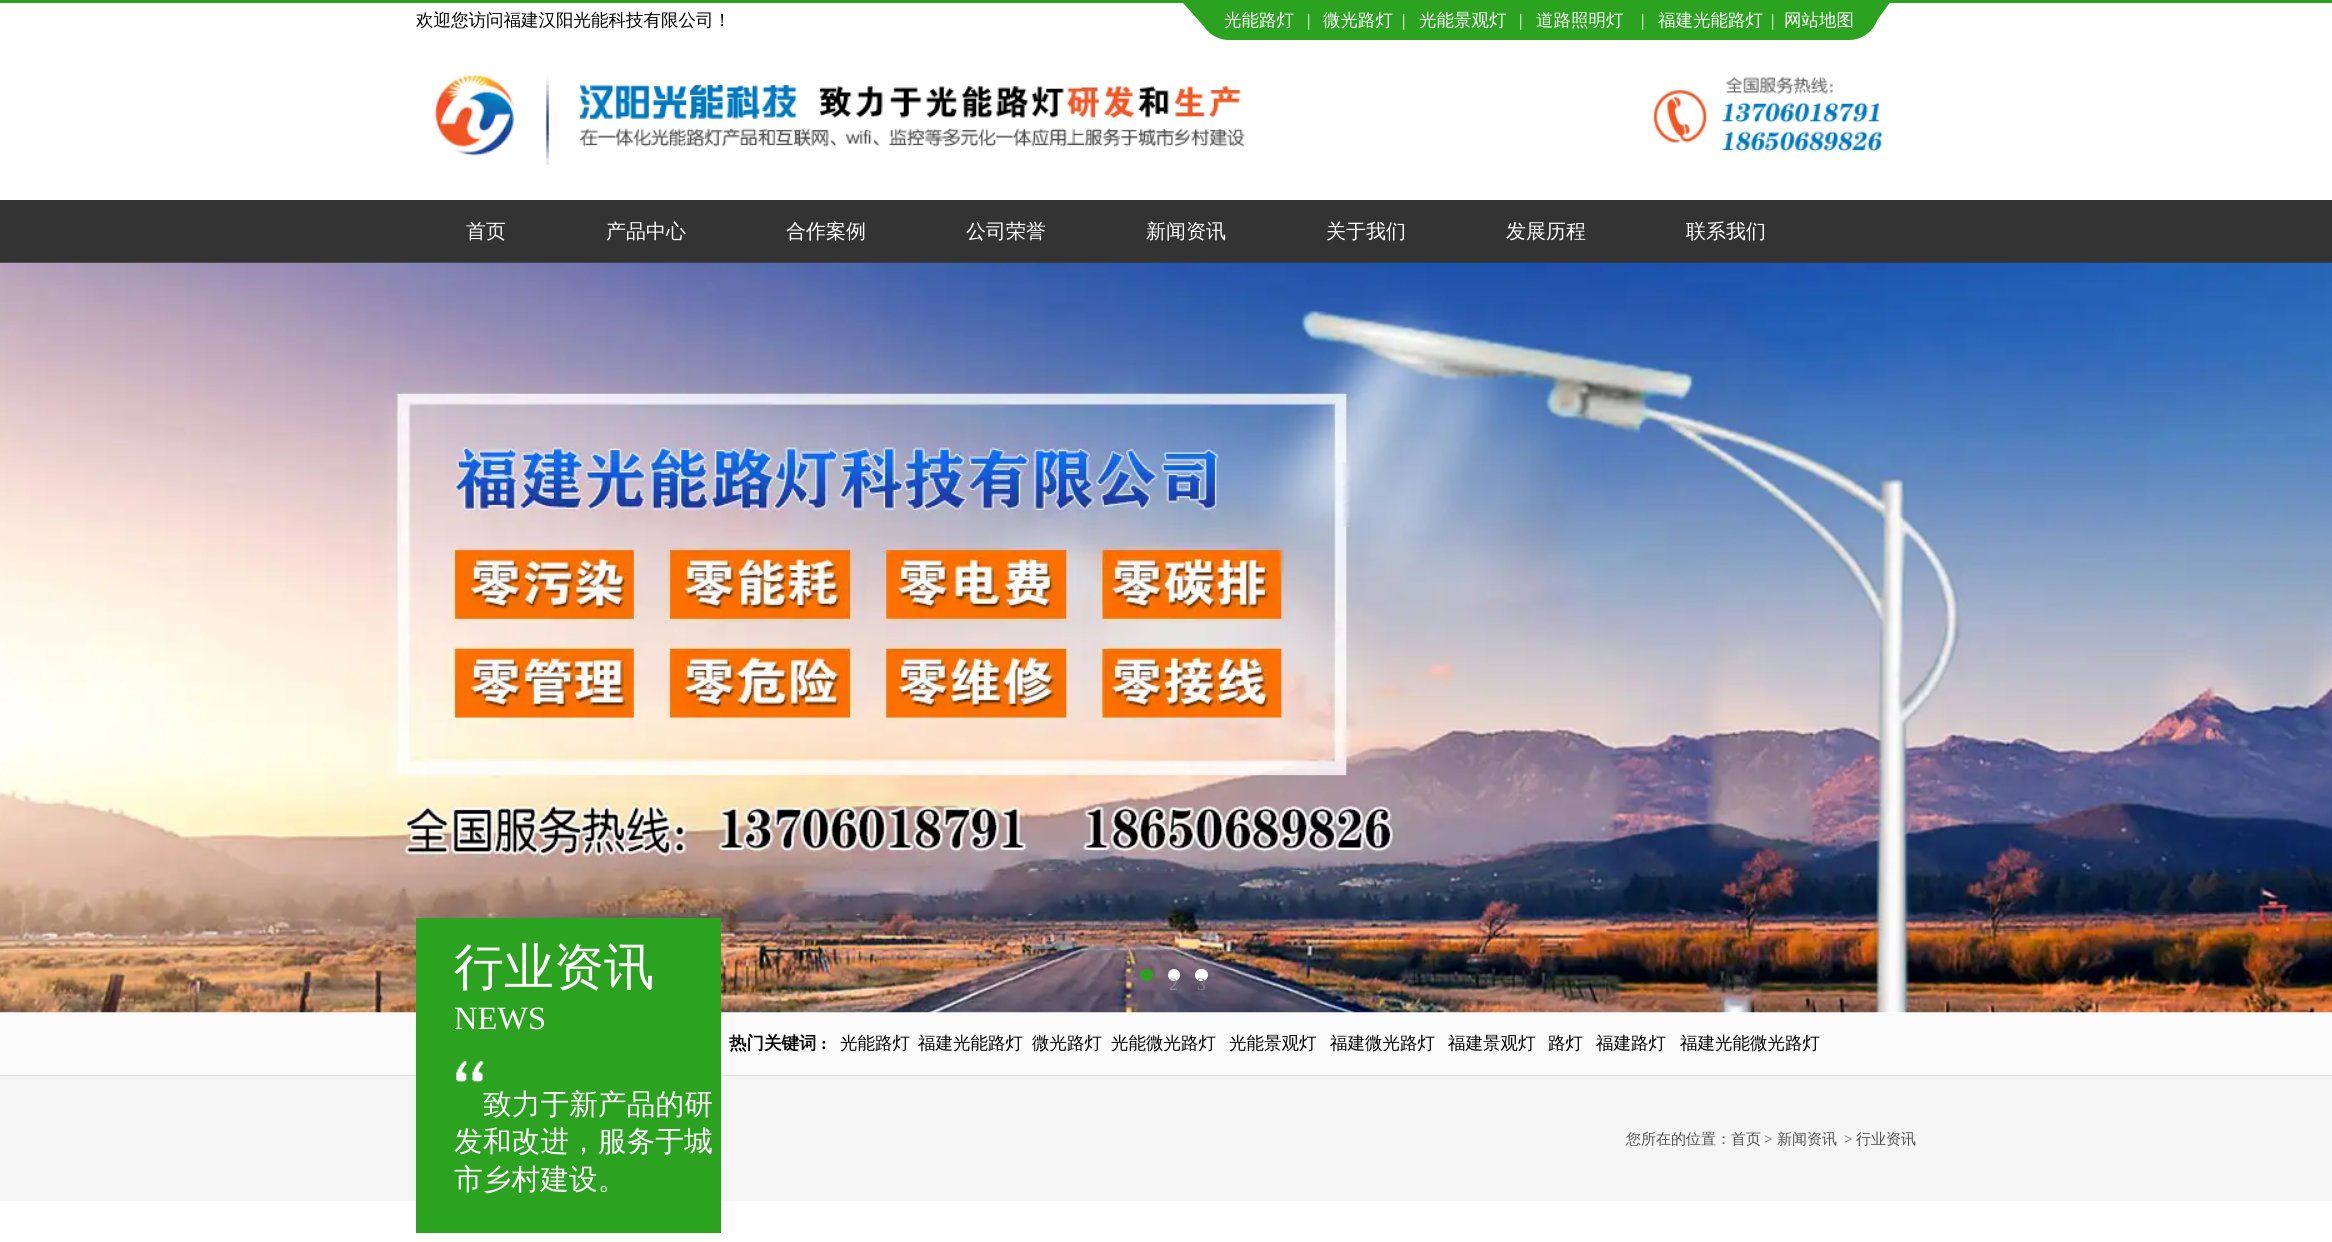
#include <cairo.h>
#include <math.h>
#include <stddef.h>

typedef struct { double x, y; const char *s; } line_t;
typedef struct { double x, y, w, h; unsigned color; } box_t;

static void ink(cairo_t *ctx, unsigned color) {
    cairo_set_source_rgb(ctx, (color >> 16) / 255.0, (color >> 8 & 255) / 255.0, (color & 255) / 255.0);
}

static void round_path(cairo_t *ctx, double x, double y, double w, double h, double r) {
    cairo_new_sub_path(ctx);
    cairo_arc(ctx, x + w - r, y + h - r, r, 0, M_PI / 2);
    cairo_arc(ctx, x + r, y + h - r, r, M_PI / 2, M_PI);
    cairo_arc(ctx, x + r, y + r, r, M_PI, 1.5 * M_PI);
    cairo_arc(ctx, x + w - r, y + r, r, 1.5 * M_PI, 2 * M_PI);
    cairo_close_path(ctx);
}

static void paste(cairo_t *ctx, const char *path, double x, double y, double w, double h) {
    cairo_surface_t *image = cairo_image_surface_create_from_png(path);
    cairo_save(ctx);
    cairo_set_source_surface(ctx, image, x, y);
    cairo_rectangle(ctx, x, y, w, h);
    cairo_fill(ctx);
    cairo_restore(ctx);
    cairo_surface_destroy(image);
}

int main(void) {
    cairo_surface_t *surface = cairo_image_surface_create(CAIRO_FORMAT_RGB24, 2332, 1242);
    cairo_t *ctx = cairo_create(surface);
    cairo_font_options_t *options = cairo_font_options_create();
    cairo_font_options_set_hint_metrics(options, CAIRO_HINT_METRICS_OFF);
    cairo_font_options_set_hint_style(options, CAIRO_HINT_STYLE_NONE);
    cairo_set_font_options(ctx, options);
    cairo_set_miter_limit(ctx, 4);
    ink(ctx, 0xFFFFFF);
    cairo_paint(ctx);
    ink(ctx, 0x2CA320);
    cairo_rectangle(ctx, 0, 0, 2332, 3);
    cairo_fill(ctx);
    cairo_select_font_face(ctx, "WenQuanYi Zen Hei Medium", CAIRO_FONT_SLANT_NORMAL, CAIRO_FONT_WEIGHT_NORMAL);
    cairo_set_font_size(ctx, 17.5);
    ink(ctx, 0x000000);
    cairo_move_to(ctx, 416, 26);
    cairo_show_text(ctx, "欢迎您访问福建汉阳光能科技有限公司！");
    ink(ctx, 0x2CA320);
    cairo_new_path(ctx);
    cairo_move_to(ctx, 1199, 3);
    cairo_line_to(ctx, 1879, 3);
    cairo_line_to(ctx, 1879, 10);
    cairo_curve_to(ctx, 1879, 26.5, 1865.5, 40, 1849, 40);
    cairo_line_to(ctx, 1229, 40);
    cairo_curve_to(ctx, 1212.5, 40, 1199, 26.5, 1199, 10);
    cairo_close_path(ctx);
    cairo_fill(ctx);
    cairo_save(ctx);
    cairo_rectangle(ctx, 416, 3, 1500, 37);
    cairo_clip(ctx);
    cairo_new_path(ctx);
    cairo_move_to(ctx, 1182.5, 2.5);
    cairo_line_to(ctx, 1205, 2.5);
    cairo_line_to(ctx, 1205, 27.5);
    cairo_close_path(ctx);
    cairo_fill(ctx);
    cairo_restore(ctx);
    ink(ctx, 0xFFFFFF);
    cairo_move_to(ctx, 1224, 26);
    cairo_show_text(ctx, "光能路灯");
    cairo_select_font_face(ctx, "Liberation Serif", CAIRO_FONT_SLANT_NORMAL, CAIRO_FONT_WEIGHT_NORMAL);
    cairo_move_to(ctx, 1307, 26);
    cairo_show_text(ctx, "|");
    cairo_select_font_face(ctx, "WenQuanYi Zen Hei Medium", CAIRO_FONT_SLANT_NORMAL, CAIRO_FONT_WEIGHT_NORMAL);
    cairo_move_to(ctx, 1323, 26);
    cairo_show_text(ctx, "微光路灯");
    cairo_select_font_face(ctx, "Liberation Serif", CAIRO_FONT_SLANT_NORMAL, CAIRO_FONT_WEIGHT_NORMAL);
    cairo_move_to(ctx, 1402, 26);
    cairo_show_text(ctx, "|");
    cairo_select_font_face(ctx, "WenQuanYi Zen Hei Medium", CAIRO_FONT_SLANT_NORMAL, CAIRO_FONT_WEIGHT_NORMAL);
    cairo_move_to(ctx, 1419, 26);
    cairo_show_text(ctx, "光能景观灯");
    cairo_select_font_face(ctx, "Liberation Serif", CAIRO_FONT_SLANT_NORMAL, CAIRO_FONT_WEIGHT_NORMAL);
    cairo_move_to(ctx, 1519, 26);
    cairo_show_text(ctx, "|");
    cairo_select_font_face(ctx, "WenQuanYi Zen Hei Medium", CAIRO_FONT_SLANT_NORMAL, CAIRO_FONT_WEIGHT_NORMAL);
    cairo_move_to(ctx, 1536, 26);
    cairo_show_text(ctx, "道路照明灯");
    cairo_select_font_face(ctx, "Liberation Serif", CAIRO_FONT_SLANT_NORMAL, CAIRO_FONT_WEIGHT_NORMAL);
    cairo_move_to(ctx, 1641, 26);
    cairo_show_text(ctx, "|");
    cairo_select_font_face(ctx, "WenQuanYi Zen Hei Medium", CAIRO_FONT_SLANT_NORMAL, CAIRO_FONT_WEIGHT_NORMAL);
    cairo_move_to(ctx, 1658, 26);
    cairo_show_text(ctx, "福建光能路灯");
    cairo_select_font_face(ctx, "Liberation Serif", CAIRO_FONT_SLANT_NORMAL, CAIRO_FONT_WEIGHT_NORMAL);
    cairo_move_to(ctx, 1771, 26);
    cairo_show_text(ctx, "|");
    cairo_select_font_face(ctx, "WenQuanYi Zen Hei Medium", CAIRO_FONT_SLANT_NORMAL, CAIRO_FONT_WEIGHT_NORMAL);
    cairo_move_to(ctx, 1784, 26);
    cairo_show_text(ctx, "网站地图");
    cairo_save(ctx);
    cairo_rectangle(ctx, 416, 3, 1500, 37);
    cairo_clip(ctx);
    ink(ctx, 0x2CA320);
    cairo_new_path(ctx);
    cairo_move_to(ctx, 1870, 2.5);
    cairo_line_to(ctx, 1890, 2.5);
    cairo_line_to(ctx, 1870, 30);
    cairo_close_path(ctx);
    cairo_fill(ctx);
    cairo_restore(ctx);
    paste(ctx, "media/1.png", 434, 74, 1449, 91);
    ink(ctx, 0x333333);
    cairo_rectangle(ctx, 0, 200, 2332, 63);
    cairo_fill(ctx);
    cairo_set_font_size(ctx, 20);
    ink(ctx, 0xFFFFFF);
    {
        static const line_t items[] = {
            {466, 238, "首页"},
            {606, 238, "产品中心"},
            {786, 238, "合作案例"},
            {966, 238, "公司荣誉"},
            {1146, 238, "新闻资讯"},
            {1326, 238, "关于我们"},
            {1506, 238, "发展历程"},
            {1686, 238, "联系我们"},
        };
        for (size_t i = 0; i < sizeof items / sizeof *items; i++) {
            cairo_move_to(ctx, items[i].x, items[i].y);
            cairo_show_text(ctx, items[i].s);
        }
    }
    ink(ctx, 0xF5F5F5);
    cairo_rectangle(ctx, 0, 1076, 2332, 125);
    cairo_fill(ctx);
    paste(ctx, "media/3.png", 0, 262, 2332, 751);
    {
        static const box_t items[] = {
            {0, 1013, 2332, 62, 0xFAFAFA},
            {0, 1075, 2332, 1, 0xDBDBDB},
            {416, 918, 305, 315, 0x2CA320},
        };
        for (size_t i = 0; i < sizeof items / sizeof *items; i++) {
            ink(ctx, items[i].color);
            cairo_rectangle(ctx, items[i].x, items[i].y, items[i].w, items[i].h);
            cairo_fill(ctx);
        }
    }
    cairo_set_font_size(ctx, 50);
    ink(ctx, 0xFFFFFF);
    cairo_move_to(ctx, 454, 984);
    cairo_show_text(ctx, "行业资讯");
    cairo_select_font_face(ctx, "Liberation Serif", CAIRO_FONT_SLANT_NORMAL, CAIRO_FONT_WEIGHT_NORMAL);
    cairo_set_font_size(ctx, 32.5);
    cairo_move_to(ctx, 454, 1029);
    cairo_show_text(ctx, "NEWS");
    paste(ctx, "media/2.png", 456, 1061, 28, 21);
    cairo_select_font_face(ctx, "WenQuanYi Zen Hei Medium", CAIRO_FONT_SLANT_NORMAL, CAIRO_FONT_WEIGHT_NORMAL);
    cairo_set_font_size(ctx, 28.75);
    {
        static const line_t items[] = {
            {483, 1114, "致力于新产品的研"},
            {454, 1151, "发和改进，服务于城"},
            {454, 1189, "市乡村建设。"},
        };
        for (size_t i = 0; i < sizeof items / sizeof *items; i++) {
            cairo_move_to(ctx, items[i].x, items[i].y);
            cairo_show_text(ctx, items[i].s);
        }
    }
    cairo_set_font_size(ctx, 15);
    ink(ctx, 0x515151);
    cairo_move_to(ctx, 1626, 1144);
    cairo_show_text(ctx, "您所在的位置：首页");
    cairo_select_font_face(ctx, "Liberation Serif", CAIRO_FONT_SLANT_NORMAL, CAIRO_FONT_WEIGHT_NORMAL);
    cairo_move_to(ctx, 1764, 1144);
    cairo_show_text(ctx, ">");
    cairo_select_font_face(ctx, "WenQuanYi Zen Hei Medium", CAIRO_FONT_SLANT_NORMAL, CAIRO_FONT_WEIGHT_NORMAL);
    cairo_move_to(ctx, 1777, 1144);
    cairo_show_text(ctx, "新闻资讯");
    cairo_select_font_face(ctx, "Liberation Serif", CAIRO_FONT_SLANT_NORMAL, CAIRO_FONT_WEIGHT_NORMAL);
    cairo_move_to(ctx, 1844, 1144);
    cairo_show_text(ctx, ">");
    cairo_select_font_face(ctx, "WenQuanYi Zen Hei Medium", CAIRO_FONT_SLANT_NORMAL, CAIRO_FONT_WEIGHT_NORMAL);
    cairo_move_to(ctx, 1856, 1144);
    cairo_show_text(ctx, "行业资讯");
    ink(ctx, 0x2CA320);
    round_path(ctx, 1140, 969, 13, 12, 6);
    cairo_fill(ctx);
    ink(ctx, 0xFFFFFF);
    cairo_arc(ctx, 1174, 975, 6, 0, 2 * M_PI);
    cairo_fill(ctx);
    cairo_select_font_face(ctx, "Liberation Serif", CAIRO_FONT_SLANT_NORMAL, CAIRO_FONT_WEIGHT_NORMAL);
    cairo_set_font_size(ctx, 17.5);
    ink(ctx, 0x958D9C);
    cairo_move_to(ctx, 1169, 990);
    cairo_show_text(ctx, "2");
    ink(ctx, 0xFFFFFF);
    round_path(ctx, 1195, 969, 13, 12, 6);
    cairo_fill(ctx);
    ink(ctx, 0x888190);
    cairo_move_to(ctx, 1197, 990);
    cairo_show_text(ctx, "3");
    cairo_select_font_face(ctx, "WenQuanYi Zen Hei", CAIRO_FONT_SLANT_NORMAL, CAIRO_FONT_WEIGHT_BOLD);
    ink(ctx, 0x000000);
    cairo_move_to(ctx, 729, 1049);
    cairo_show_text(ctx, "热门关键词");
    cairo_select_font_face(ctx, "Liberation Serif", CAIRO_FONT_SLANT_NORMAL, CAIRO_FONT_WEIGHT_BOLD);
    cairo_move_to(ctx, 821, 1049);
    cairo_show_text(ctx, ":");
    cairo_select_font_face(ctx, "WenQuanYi Zen Hei Medium", CAIRO_FONT_SLANT_NORMAL, CAIRO_FONT_WEIGHT_NORMAL);
    {
        static const line_t items[] = {
            {840, 1049, "光能路灯"},
            {918, 1049, "福建光能路灯"},
            {1032, 1049, "微光路灯"},
            {1111, 1049, "光能微光路灯"},
            {1229, 1049, "光能景观灯"},
            {1330, 1049, "福建微光路灯"},
            {1448, 1049, "福建景观灯"},
            {1548, 1049, "路灯"},
            {1596, 1049, "福建路灯"},
            {1680, 1049, "福建光能微光路灯"},
        };
        for (size_t i = 0; i < sizeof items / sizeof *items; i++) {
            cairo_move_to(ctx, items[i].x, items[i].y);
            cairo_show_text(ctx, items[i].s);
        }
    }
    cairo_surface_write_to_png(surface, "image.png");
    cairo_font_options_destroy(options);
    cairo_destroy(ctx);
    cairo_surface_destroy(surface);
    return 0;
}
